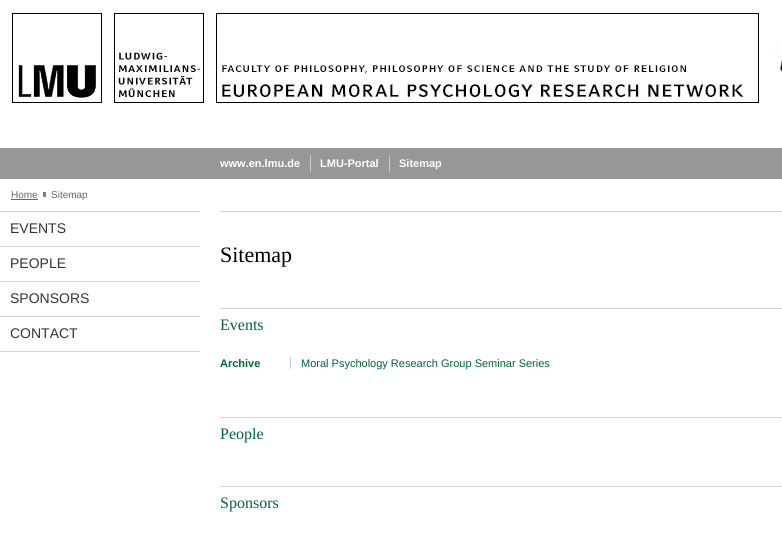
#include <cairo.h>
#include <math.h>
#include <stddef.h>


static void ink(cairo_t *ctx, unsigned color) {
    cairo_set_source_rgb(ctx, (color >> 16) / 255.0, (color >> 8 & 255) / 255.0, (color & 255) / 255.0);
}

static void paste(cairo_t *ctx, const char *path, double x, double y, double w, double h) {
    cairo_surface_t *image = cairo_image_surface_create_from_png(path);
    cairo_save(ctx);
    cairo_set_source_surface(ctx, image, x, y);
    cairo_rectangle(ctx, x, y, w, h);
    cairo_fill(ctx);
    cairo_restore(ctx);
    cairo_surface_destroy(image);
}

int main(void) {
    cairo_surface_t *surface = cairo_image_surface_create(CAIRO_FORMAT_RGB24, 782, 551);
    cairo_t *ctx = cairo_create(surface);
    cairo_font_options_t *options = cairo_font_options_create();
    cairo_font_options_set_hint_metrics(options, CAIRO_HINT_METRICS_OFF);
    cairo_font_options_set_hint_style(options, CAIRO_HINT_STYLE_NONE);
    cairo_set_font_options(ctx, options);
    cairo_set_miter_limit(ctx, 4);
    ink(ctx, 0xFFFFFF);
    cairo_paint(ctx);
    paste(ctx, "media/1.png", 12, 13, 770, 90);
    ink(ctx, 0x979797);
    cairo_rectangle(ctx, 0, 148, 782, 31);
    cairo_fill(ctx);
    cairo_select_font_face(ctx, "Liberation Sans", CAIRO_FONT_SLANT_NORMAL, CAIRO_FONT_WEIGHT_BOLD);
    cairo_set_font_size(ctx, 11);
    ink(ctx, 0xFFFFFF);
    cairo_move_to(ctx, 220, 167);
    cairo_show_text(ctx, "www.en.lmu.de");
    ink(ctx, 0xCBCBCB);
    cairo_rectangle(ctx, 310, 155, 1, 17);
    cairo_fill(ctx);
    ink(ctx, 0xFFFFFF);
    cairo_move_to(ctx, 320, 167);
    cairo_show_text(ctx, "LMU-Portal");
    ink(ctx, 0xCBCBCB);
    cairo_rectangle(ctx, 389, 155, 1, 17);
    cairo_fill(ctx);
    ink(ctx, 0xFFFFFF);
    cairo_move_to(ctx, 399, 167);
    cairo_show_text(ctx, "Sitemap");
    cairo_select_font_face(ctx, "Liberation Sans", CAIRO_FONT_SLANT_NORMAL, CAIRO_FONT_WEIGHT_NORMAL);
    cairo_set_font_size(ctx, 10);
    ink(ctx, 0x666666);
    cairo_move_to(ctx, 11, 198);
    cairo_show_text(ctx, "Home");
    cairo_rectangle(ctx, 11, 199, 27, 1);
    cairo_fill(ctx);
    ink(ctx, 0x7F7F7F);
    cairo_rectangle(ctx, 43, 192, 3, 5);
    cairo_fill(ctx);
    ink(ctx, 0x666666);
    cairo_move_to(ctx, 51, 198);
    cairo_show_text(ctx, "Sitemap");
    ink(ctx, 0xD8D8D8);
    cairo_rectangle(ctx, 0, 211, 200, 1);
    cairo_fill(ctx);
    cairo_rectangle(ctx, 0, 246, 200, 1);
    cairo_fill(ctx);
    cairo_set_font_size(ctx, 14);
    ink(ctx, 0x333333);
    cairo_move_to(ctx, 10, 233);
    cairo_show_text(ctx, "EVENTS");
    ink(ctx, 0xD8D8D8);
    cairo_rectangle(ctx, 0, 281, 200, 1);
    cairo_fill(ctx);
    ink(ctx, 0x333333);
    cairo_move_to(ctx, 10, 268);
    cairo_show_text(ctx, "PEOPLE");
    ink(ctx, 0xD8D8D8);
    cairo_rectangle(ctx, 0, 316, 200, 1);
    cairo_fill(ctx);
    ink(ctx, 0x333333);
    cairo_move_to(ctx, 10, 303);
    cairo_show_text(ctx, "SPONSORS");
    ink(ctx, 0xD8D8D8);
    cairo_rectangle(ctx, 0, 351, 200, 1);
    cairo_fill(ctx);
    ink(ctx, 0x333333);
    cairo_move_to(ctx, 10, 338);
    cairo_show_text(ctx, "CONTACT");
    ink(ctx, 0xD8D8D8);
    cairo_rectangle(ctx, 220, 211, 562, 1);
    cairo_fill(ctx);
    cairo_select_font_face(ctx, "Liberation Serif", CAIRO_FONT_SLANT_NORMAL, CAIRO_FONT_WEIGHT_NORMAL);
    cairo_set_font_size(ctx, 22);
    ink(ctx, 0x000000);
    cairo_move_to(ctx, 220, 262);
    cairo_show_text(ctx, "Sitemap");
    ink(ctx, 0xD8D8D8);
    cairo_rectangle(ctx, 220, 308, 562, 1);
    cairo_fill(ctx);
    cairo_set_font_size(ctx, 16);
    ink(ctx, 0x006633);
    cairo_move_to(ctx, 220, 330);
    cairo_show_text(ctx, "Events");
    cairo_select_font_face(ctx, "Liberation Sans", CAIRO_FONT_SLANT_NORMAL, CAIRO_FONT_WEIGHT_BOLD);
    cairo_set_font_size(ctx, 11);
    cairo_move_to(ctx, 220, 367);
    cairo_show_text(ctx, "Archive");
    cairo_select_font_face(ctx, "Liberation Sans", CAIRO_FONT_SLANT_NORMAL, CAIRO_FONT_WEIGHT_NORMAL);
    cairo_move_to(ctx, 301, 367);
    cairo_show_text(ctx, "Moral Psychology Research Group Seminar Series");
    ink(ctx, 0xC8C8C8);
    cairo_rectangle(ctx, 290, 357, 1, 12);
    cairo_fill(ctx);
    ink(ctx, 0xD8D8D8);
    cairo_rectangle(ctx, 220, 417, 562, 1);
    cairo_fill(ctx);
    cairo_select_font_face(ctx, "Liberation Serif", CAIRO_FONT_SLANT_NORMAL, CAIRO_FONT_WEIGHT_NORMAL);
    cairo_set_font_size(ctx, 16);
    ink(ctx, 0x006633);
    cairo_move_to(ctx, 220, 439);
    cairo_show_text(ctx, "People");
    ink(ctx, 0xD8D8D8);
    cairo_rectangle(ctx, 220, 486, 562, 1);
    cairo_fill(ctx);
    ink(ctx, 0x006633);
    cairo_move_to(ctx, 220, 508);
    cairo_show_text(ctx, "Sponsors");
    cairo_surface_write_to_png(surface, "image.png");
    cairo_font_options_destroy(options);
    cairo_destroy(ctx);
    cairo_surface_destroy(surface);
    return 0;
}
